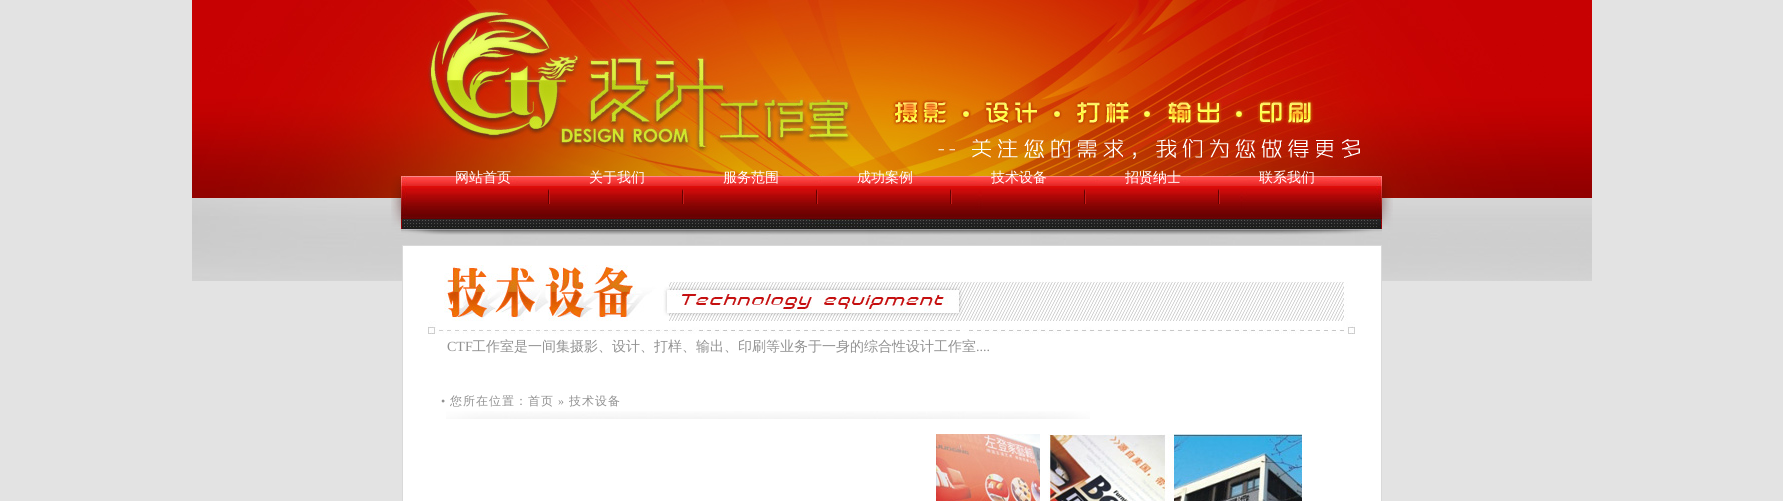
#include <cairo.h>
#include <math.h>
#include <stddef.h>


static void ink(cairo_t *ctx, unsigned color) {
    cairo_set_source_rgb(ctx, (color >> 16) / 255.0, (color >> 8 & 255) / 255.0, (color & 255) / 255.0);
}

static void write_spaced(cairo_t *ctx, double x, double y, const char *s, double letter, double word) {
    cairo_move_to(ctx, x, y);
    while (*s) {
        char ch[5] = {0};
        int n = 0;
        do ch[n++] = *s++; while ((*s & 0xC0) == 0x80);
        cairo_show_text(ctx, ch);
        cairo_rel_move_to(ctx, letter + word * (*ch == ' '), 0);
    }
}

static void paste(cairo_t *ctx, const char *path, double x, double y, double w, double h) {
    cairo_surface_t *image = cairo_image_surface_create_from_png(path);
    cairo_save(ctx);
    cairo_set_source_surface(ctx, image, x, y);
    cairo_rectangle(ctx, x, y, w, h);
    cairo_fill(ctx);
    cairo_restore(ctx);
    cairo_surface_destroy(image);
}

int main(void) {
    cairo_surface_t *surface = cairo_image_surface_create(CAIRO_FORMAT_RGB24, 1783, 501);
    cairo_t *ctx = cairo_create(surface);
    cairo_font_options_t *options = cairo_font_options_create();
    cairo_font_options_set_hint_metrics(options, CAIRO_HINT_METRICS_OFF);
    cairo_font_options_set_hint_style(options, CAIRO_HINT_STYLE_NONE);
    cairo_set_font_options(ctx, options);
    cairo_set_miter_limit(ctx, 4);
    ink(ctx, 0xE3E3E3);
    cairo_paint(ctx);
    paste(ctx, "media/1.png", 192, 0, 1400, 281);
    paste(ctx, "media/2.png", 425, 0, 936, 169);
    paste(ctx, "media/3.png", 391, 169, 1002, 61);
    paste(ctx, "media/4.png", 548, 189, 2, 15);
    cairo_select_font_face(ctx, "WenQuanYi Zen Hei Medium", CAIRO_FONT_SLANT_NORMAL, CAIRO_FONT_WEIGHT_NORMAL);
    cairo_set_font_size(ctx, 14);
    ink(ctx, 0xFFFFFF);
    cairo_move_to(ctx, 455, 182);
    cairo_show_text(ctx, "网站首页");
    paste(ctx, "media/4.png", 682, 189, 2, 15);
    cairo_move_to(ctx, 589, 182);
    cairo_show_text(ctx, "关于我们");
    paste(ctx, "media/4.png", 816, 189, 2, 15);
    cairo_move_to(ctx, 723, 182);
    cairo_show_text(ctx, "服务范围");
    paste(ctx, "media/4.png", 950, 189, 2, 15);
    cairo_move_to(ctx, 857, 182);
    cairo_show_text(ctx, "成功案例");
    paste(ctx, "media/4.png", 1084, 189, 2, 15);
    cairo_move_to(ctx, 991, 182);
    cairo_show_text(ctx, "技术设备");
    paste(ctx, "media/4.png", 1218, 189, 2, 15);
    cairo_move_to(ctx, 1125, 182);
    cairo_show_text(ctx, "招贤纳士");
    cairo_move_to(ctx, 1259, 182);
    cairo_show_text(ctx, "联系我们");
    paste(ctx, "media/5.png", 401, 230, 981, 5);
    cairo_rectangle(ctx, 402.5, 245.5, 979, 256);
    cairo_fill_preserve(ctx);
    ink(ctx, 0xD9D9D9);
    cairo_set_line_width(ctx, 1);
    cairo_stroke(ctx);
    paste(ctx, "media/6.png", 428, 265, 927, 69);
    cairo_select_font_face(ctx, "Liberation Serif", CAIRO_FONT_SLANT_NORMAL, CAIRO_FONT_WEIGHT_NORMAL);
    ink(ctx, 0x919191);
    cairo_move_to(ctx, 447, 351);
    cairo_show_text(ctx, "CTF");
    cairo_select_font_face(ctx, "WenQuanYi Zen Hei Medium", CAIRO_FONT_SLANT_NORMAL, CAIRO_FONT_WEIGHT_NORMAL);
    cairo_move_to(ctx, 472, 351);
    cairo_show_text(ctx, "工作室是一间集摄影、设计、打样、输出、印刷等业务于一身的综合性设计工作室");
    cairo_select_font_face(ctx, "Liberation Serif", CAIRO_FONT_SLANT_NORMAL, CAIRO_FONT_WEIGHT_NORMAL);
    cairo_move_to(ctx, 976, 351);
    cairo_show_text(ctx, "....");
    paste(ctx, "media/7.png", 446, 411, 644, 8);
    cairo_set_font_size(ctx, 12);
    write_spaced(ctx, 441, 405, "•", 1, 0);
    cairo_select_font_face(ctx, "WenQuanYi Zen Hei Medium", CAIRO_FONT_SLANT_NORMAL, CAIRO_FONT_WEIGHT_NORMAL);
    write_spaced(ctx, 450, 405, "您所在位置：首页", 1, 0);
    cairo_select_font_face(ctx, "Liberation Serif", CAIRO_FONT_SLANT_NORMAL, CAIRO_FONT_WEIGHT_NORMAL);
    write_spaced(ctx, 558, 405, "»", 1, 0);
    cairo_select_font_face(ctx, "WenQuanYi Zen Hei Medium", CAIRO_FONT_SLANT_NORMAL, CAIRO_FONT_WEIGHT_NORMAL);
    write_spaced(ctx, 569, 405, "技术设备", 1, 0);
    paste(ctx, "media/8.png", 936, 434, 366, 67);
    cairo_surface_write_to_png(surface, "image.png");
    cairo_font_options_destroy(options);
    cairo_destroy(ctx);
    cairo_surface_destroy(surface);
    return 0;
}
